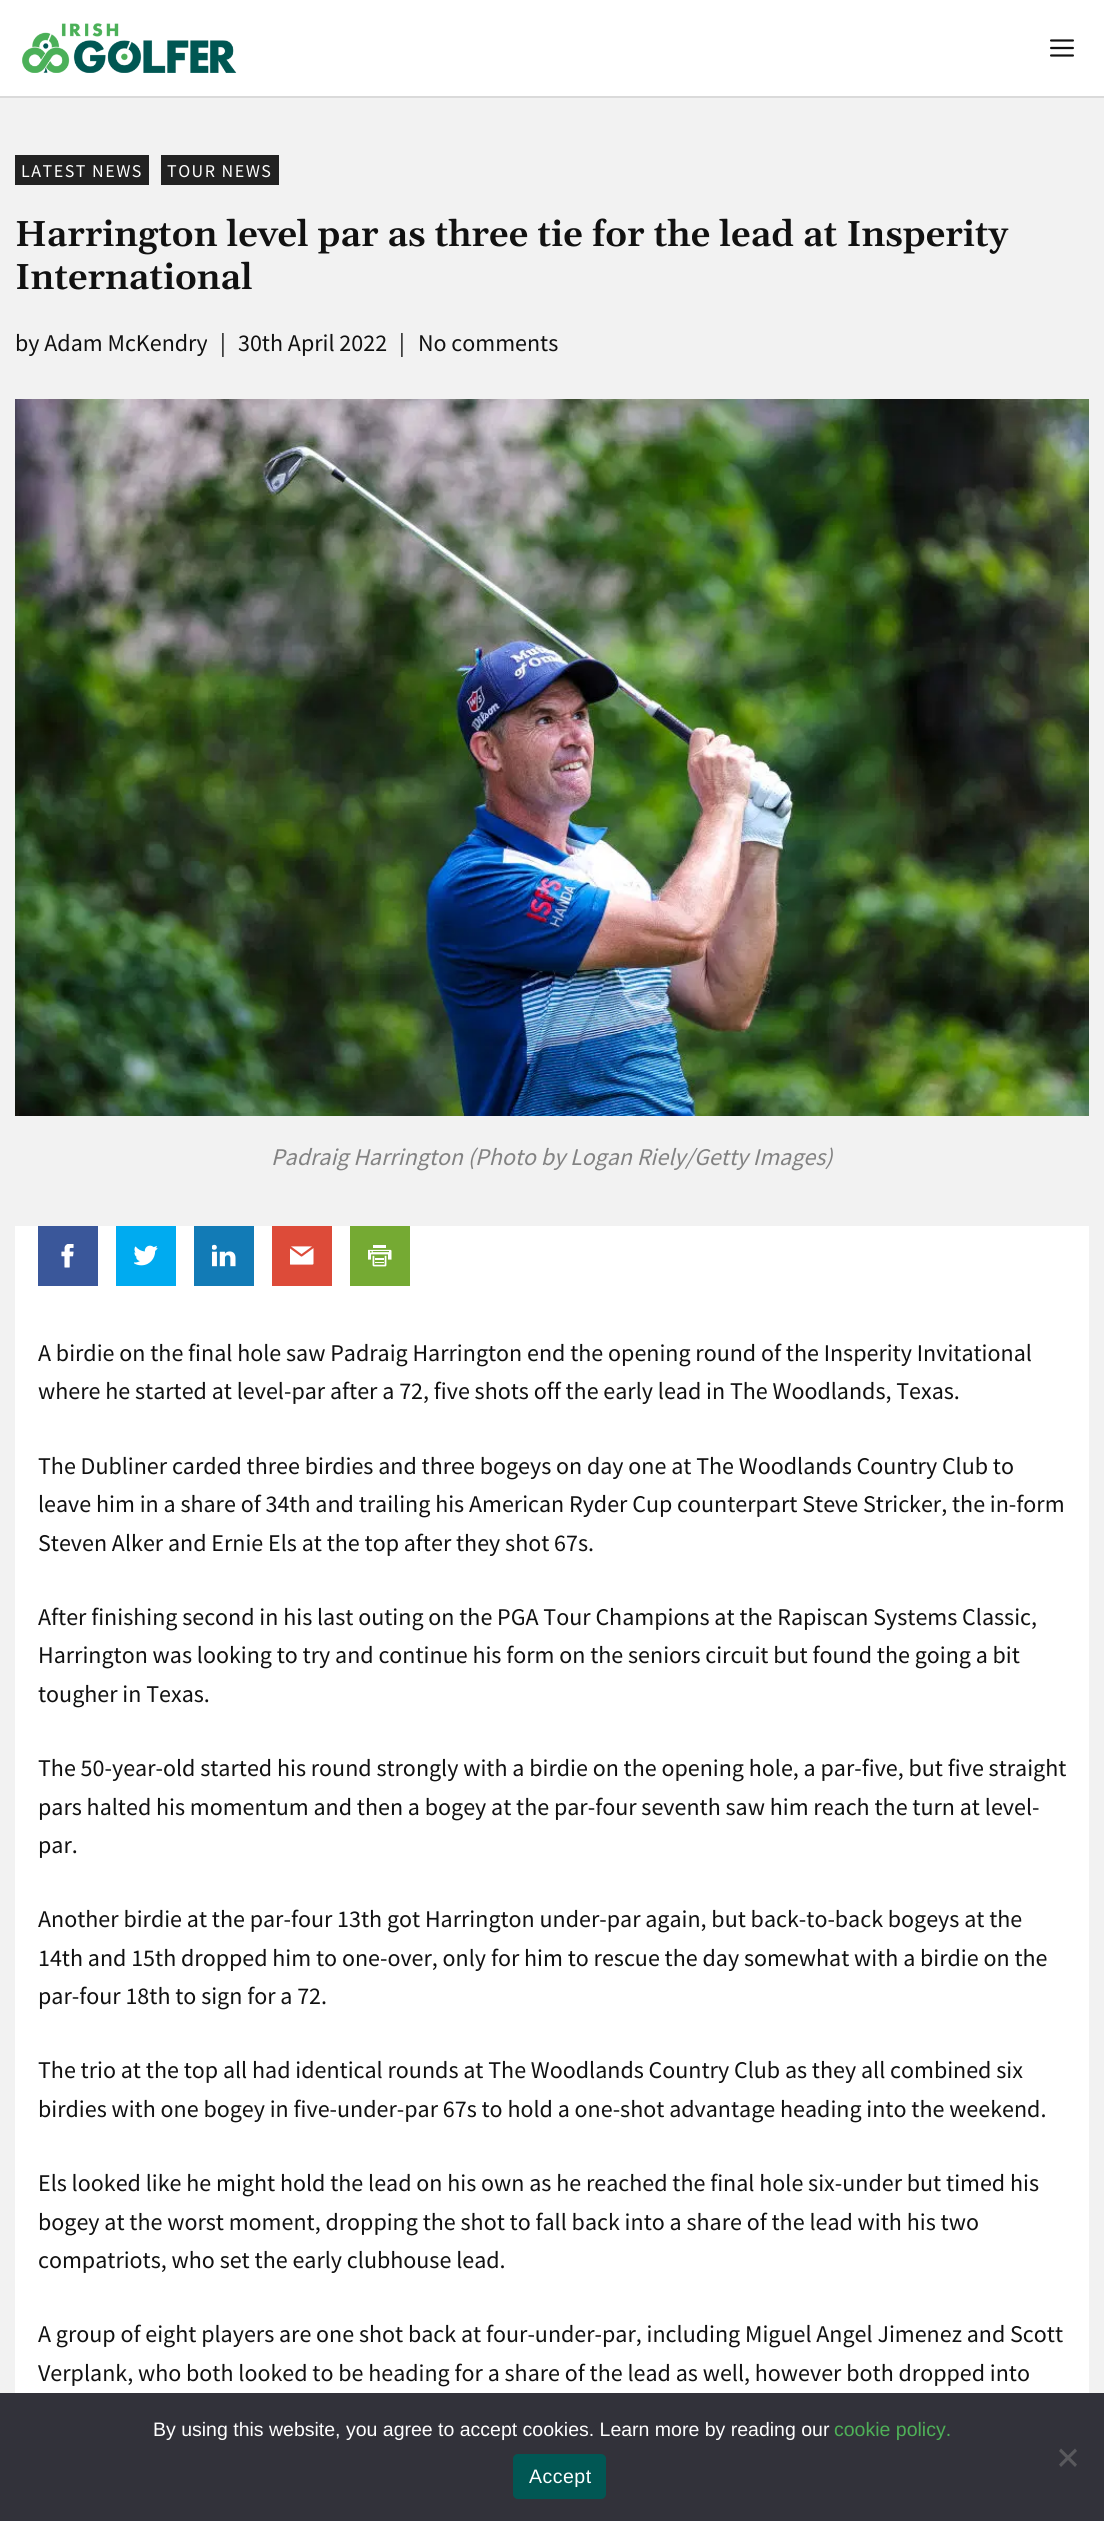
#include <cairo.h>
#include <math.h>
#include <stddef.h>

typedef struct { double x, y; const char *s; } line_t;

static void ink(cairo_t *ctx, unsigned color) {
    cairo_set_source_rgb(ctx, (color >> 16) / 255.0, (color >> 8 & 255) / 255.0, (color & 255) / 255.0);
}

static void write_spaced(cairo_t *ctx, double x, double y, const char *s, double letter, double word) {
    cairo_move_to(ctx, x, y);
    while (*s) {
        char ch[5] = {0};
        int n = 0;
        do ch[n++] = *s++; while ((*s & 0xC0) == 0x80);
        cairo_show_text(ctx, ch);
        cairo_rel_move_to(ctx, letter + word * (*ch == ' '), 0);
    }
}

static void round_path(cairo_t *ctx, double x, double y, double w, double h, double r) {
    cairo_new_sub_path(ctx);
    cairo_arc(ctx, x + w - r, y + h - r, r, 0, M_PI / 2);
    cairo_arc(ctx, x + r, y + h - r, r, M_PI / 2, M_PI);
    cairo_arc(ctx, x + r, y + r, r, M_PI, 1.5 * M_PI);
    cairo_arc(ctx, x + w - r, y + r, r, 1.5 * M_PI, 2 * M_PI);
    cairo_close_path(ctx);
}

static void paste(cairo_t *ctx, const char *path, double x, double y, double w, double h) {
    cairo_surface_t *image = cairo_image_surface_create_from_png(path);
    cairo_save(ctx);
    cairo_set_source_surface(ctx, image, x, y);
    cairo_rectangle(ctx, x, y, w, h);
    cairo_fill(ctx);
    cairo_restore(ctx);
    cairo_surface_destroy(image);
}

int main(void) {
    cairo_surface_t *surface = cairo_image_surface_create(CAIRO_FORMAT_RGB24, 1104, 2521);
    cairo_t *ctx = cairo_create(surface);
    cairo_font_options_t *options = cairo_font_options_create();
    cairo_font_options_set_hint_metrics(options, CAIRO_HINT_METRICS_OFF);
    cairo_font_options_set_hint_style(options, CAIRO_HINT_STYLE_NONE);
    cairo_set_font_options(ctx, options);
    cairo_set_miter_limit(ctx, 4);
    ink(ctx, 0xF2F2F2);
    cairo_paint(ctx);
    ink(ctx, 0xDADADA);
    cairo_rectangle(ctx, 0, 96, 1104, 2);
    cairo_fill(ctx);
    ink(ctx, 0xFFFFFF);
    cairo_rectangle(ctx, 0, 0, 1104, 96);
    cairo_fill(ctx);
    paste(ctx, "media/1.png", 22, 23, 215, 50);
    paste(ctx, "media/2.png", 1050, 39, 24, 18);
    ink(ctx, 0x222222);
    cairo_rectangle(ctx, 15, 155, 134, 30);
    cairo_fill(ctx);
    cairo_select_font_face(ctx, "Source Sans Pro", CAIRO_FONT_SLANT_NORMAL, CAIRO_FONT_WEIGHT_NORMAL);
    cairo_set_font_size(ctx, 18);
    ink(ctx, 0xFFFFFF);
    write_spaced(ctx, 21, 177, "LATEST NEWS", 1.5, 0);
    ink(ctx, 0x222222);
    cairo_rectangle(ctx, 161, 155, 118, 30);
    cairo_fill(ctx);
    ink(ctx, 0xFFFFFF);
    write_spaced(ctx, 167, 177, "TOUR NEWS", 1.5, 0);
    cairo_select_font_face(ctx, "Gelasio SemiBold", CAIRO_FONT_SLANT_NORMAL, CAIRO_FONT_WEIGHT_NORMAL);
    cairo_set_font_size(ctx, 36);
    ink(ctx, 0x111111);
    cairo_move_to(ctx, 15, 246);
    cairo_show_text(ctx, "Harrington level par as three tie for the lead at Insperity");
    cairo_move_to(ctx, 15, 289);
    cairo_show_text(ctx, "International");
    cairo_select_font_face(ctx, "Source Sans Pro", CAIRO_FONT_SLANT_NORMAL, CAIRO_FONT_WEIGHT_NORMAL);
    cairo_set_font_size(ctx, 24);
    {
        static const line_t items[] = {
            {15, 351, "by Adam McKendry"},
            {220, 351, "|"},
            {238, 351, "30th April 2022"},
            {399, 351, "|"},
            {418, 351, "No comments"},
        };
        for (size_t i = 0; i < sizeof items / sizeof *items; i++) {
            cairo_move_to(ctx, items[i].x, items[i].y);
            cairo_show_text(ctx, items[i].s);
        }
    }
    paste(ctx, "media/3.png", 15, 399, 1074, 717);
    cairo_select_font_face(ctx, "Source Sans Pro", CAIRO_FONT_SLANT_ITALIC, CAIRO_FONT_WEIGHT_NORMAL);
    ink(ctx, 0x828282);
    cairo_move_to(ctx, 271, 1165);
    cairo_show_text(ctx, "Padraig Harrington (Photo by Logan Riely/Getty Images)");
    ink(ctx, 0xFFFFFF);
    cairo_rectangle(ctx, 15, 1226, 1074, 1167);
    cairo_fill(ctx);
    ink(ctx, 0x3A579A);
    cairo_rectangle(ctx, 38, 1226, 60, 60);
    cairo_fill(ctx);
    paste(ctx, "media/4.png", 61, 1244, 13, 24);
    ink(ctx, 0x00ABF0);
    cairo_rectangle(ctx, 116, 1226, 60, 60);
    cairo_fill(ctx);
    paste(ctx, "media/5.png", 134, 1245, 24, 21);
    ink(ctx, 0x127BB6);
    cairo_rectangle(ctx, 194, 1226, 60, 60);
    cairo_fill(ctx);
    paste(ctx, "media/6.png", 212, 1244, 24, 23);
    ink(ctx, 0xDD4B39);
    cairo_rectangle(ctx, 272, 1226, 60, 60);
    cairo_fill(ctx);
    paste(ctx, "media/7.png", 290, 1246, 24, 19);
    ink(ctx, 0x75AA33);
    cairo_rectangle(ctx, 350, 1226, 60, 60);
    cairo_fill(ctx);
    paste(ctx, "media/8.png", 368, 1245, 24, 22);
    cairo_select_font_face(ctx, "Source Sans Pro", CAIRO_FONT_SLANT_NORMAL, CAIRO_FONT_WEIGHT_NORMAL);
    ink(ctx, 0x111111);
    {
        static const line_t items[] = {
            {38, 1361, "A birdie on the final hole saw Padraig Harrington end the opening round of the Insperity Invitational"},
            {38, 1399, "where he started at level-par after a 72, five shots off the early lead in The Woodlands, Texas."},
            {38, 1474, "The Dubliner carded three birdies and three bogeys on day one at The Woodlands Country Club to"},
            {38, 1512, "leave him in a share of 34th and trailing his American Ryder Cup counterpart Steve Stricker, the in-form"},
            {38, 1551, "Steven Alker and Ernie Els at the top after they shot 67s."},
            {38, 1625, "After finishing second in his last outing on the PGA Tour Champions at the Rapiscan Systems Classic,"},
            {38, 1663, "Harrington was looking to try and continue his form on the seniors circuit but found the going a bit"},
            {38, 1702, "tougher in Texas."},
            {38, 1776, "The 50-year-old started his round strongly with a birdie on the opening hole, a par-five, but five straight"},
            {38, 1815, "pars halted his momentum and then a bogey at the par-four seventh saw him reach the turn at level-"},
            {38, 1853, "par."},
            {38, 1927, "Another birdie at the par-four 13th got Harrington under-par again, but back-to-back bogeys at the"},
            {38, 1966, "14th and 15th dropped him to one-over, only for him to rescue the day somewhat with a birdie on the"},
            {38, 2004, "par-four 18th to sign for a 72."},
            {38, 2078, "The trio at the top all had identical rounds at The Woodlands Country Club as they all combined six"},
            {38, 2117, "birdies with one bogey in five-under-par 67s to hold a one-shot advantage heading into the weekend."},
            {38, 2191, "Els looked like he might hold the lead on his own as he reached the final hole six-under but timed his"},
            {38, 2230, "bogey at the worst moment, dropping the shot to fall back into a share of the lead with his two"},
            {38, 2268, "compatriots, who set the early clubhouse lead."},
            {38, 2342, "A group of eight players are one shot back at four-under-par, including Miguel Angel Jimenez and Scott"},
            {38, 2381, "Verplank, who both looked to be heading for a share of the lead as well, however both dropped into"},
        };
        for (size_t i = 0; i < sizeof items / sizeof *items; i++) {
            cairo_move_to(ctx, items[i].x, items[i].y);
            cairo_show_text(ctx, items[i].s);
        }
    }
    ink(ctx, 0x32323A);
    cairo_rectangle(ctx, 0, 2393, 1104, 128);
    cairo_fill(ctx);
    cairo_select_font_face(ctx, "Liberation Sans", CAIRO_FONT_SLANT_NORMAL, CAIRO_FONT_WEIGHT_NORMAL);
    cairo_set_font_size(ctx, 19.5);
    ink(ctx, 0xFFFFFF);
    cairo_move_to(ctx, 153, 2436);
    cairo_show_text(ctx, "By using this website, you agree to accept cookies. Learn more by reading our");
    ink(ctx, 0x4EB057);
    cairo_move_to(ctx, 834, 2436);
    cairo_show_text(ctx, "cookie policy.");
    ink(ctx, 0x59595D);
    cairo_new_path(ctx);
    cairo_move_to(ctx, 1075, 2448.5);
    cairo_line_to(ctx, 1077, 2451);
    cairo_line_to(ctx, 1061, 2467);
    cairo_line_to(ctx, 1059, 2464.5);
    cairo_close_path(ctx);
    cairo_fill(ctx);
    cairo_new_path(ctx);
    cairo_move_to(ctx, 1059, 2451);
    cairo_line_to(ctx, 1061, 2448.5);
    cairo_line_to(ctx, 1077, 2464.5);
    cairo_line_to(ctx, 1075, 2467);
    cairo_close_path(ctx);
    cairo_fill(ctx);
    ink(ctx, 0x015754);
    round_path(ctx, 513, 2454, 93, 45, 5);
    cairo_fill(ctx);
    ink(ctx, 0xFFFFFF);
    write_spaced(ctx, 529, 2483, "Accept", 0.5, 0);
    cairo_surface_write_to_png(surface, "image.png");
    cairo_font_options_destroy(options);
    cairo_destroy(ctx);
    cairo_surface_destroy(surface);
    return 0;
}
